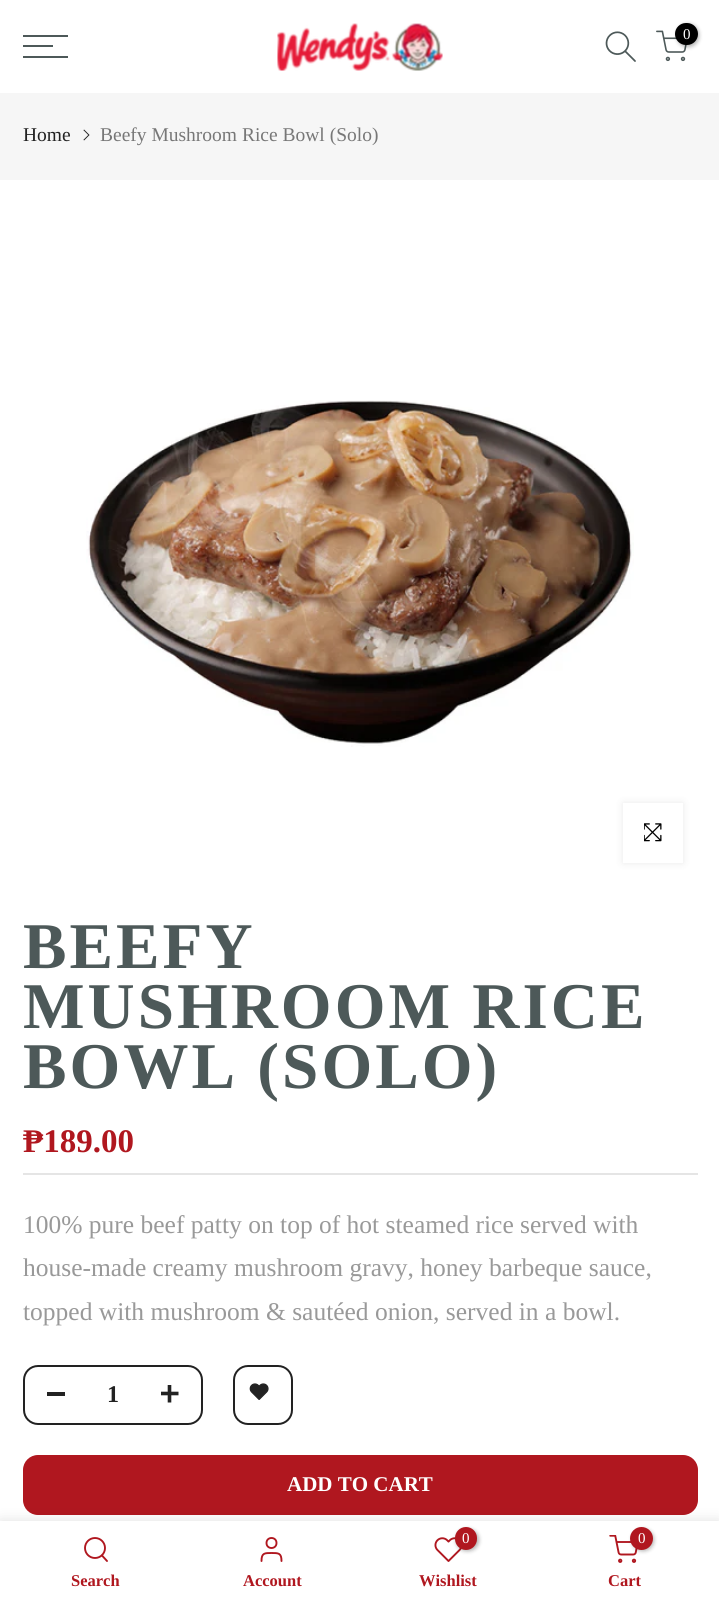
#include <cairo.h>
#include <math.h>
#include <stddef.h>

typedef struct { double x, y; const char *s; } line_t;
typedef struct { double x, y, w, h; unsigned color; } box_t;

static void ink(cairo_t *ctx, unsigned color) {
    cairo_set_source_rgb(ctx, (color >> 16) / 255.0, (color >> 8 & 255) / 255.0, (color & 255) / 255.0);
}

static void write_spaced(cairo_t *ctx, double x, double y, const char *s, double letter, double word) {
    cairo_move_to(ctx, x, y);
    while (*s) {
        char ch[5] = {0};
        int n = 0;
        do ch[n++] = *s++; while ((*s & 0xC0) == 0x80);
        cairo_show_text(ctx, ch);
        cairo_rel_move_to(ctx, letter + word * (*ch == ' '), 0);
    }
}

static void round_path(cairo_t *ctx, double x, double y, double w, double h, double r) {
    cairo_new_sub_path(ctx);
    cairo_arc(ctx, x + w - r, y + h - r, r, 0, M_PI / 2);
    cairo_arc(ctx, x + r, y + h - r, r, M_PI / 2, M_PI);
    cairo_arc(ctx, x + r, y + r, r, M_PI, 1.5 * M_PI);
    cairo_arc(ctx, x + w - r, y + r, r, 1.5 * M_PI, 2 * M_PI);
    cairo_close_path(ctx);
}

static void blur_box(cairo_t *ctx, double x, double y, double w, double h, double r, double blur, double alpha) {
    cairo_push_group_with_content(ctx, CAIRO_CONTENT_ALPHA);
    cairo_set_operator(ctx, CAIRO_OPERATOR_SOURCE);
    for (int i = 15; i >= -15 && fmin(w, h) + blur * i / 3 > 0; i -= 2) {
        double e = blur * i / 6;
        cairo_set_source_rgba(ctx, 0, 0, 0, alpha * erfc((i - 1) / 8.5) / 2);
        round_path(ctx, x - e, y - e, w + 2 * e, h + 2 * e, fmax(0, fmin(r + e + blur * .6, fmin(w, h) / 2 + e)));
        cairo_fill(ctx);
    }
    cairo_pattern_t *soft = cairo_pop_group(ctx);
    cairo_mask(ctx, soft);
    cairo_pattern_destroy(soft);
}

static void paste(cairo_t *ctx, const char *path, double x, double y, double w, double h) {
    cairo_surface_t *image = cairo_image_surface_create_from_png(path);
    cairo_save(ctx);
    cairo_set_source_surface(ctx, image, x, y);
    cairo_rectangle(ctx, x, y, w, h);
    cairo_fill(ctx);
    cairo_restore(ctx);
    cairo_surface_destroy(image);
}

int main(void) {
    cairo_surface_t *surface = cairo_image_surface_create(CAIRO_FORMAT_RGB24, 719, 1603);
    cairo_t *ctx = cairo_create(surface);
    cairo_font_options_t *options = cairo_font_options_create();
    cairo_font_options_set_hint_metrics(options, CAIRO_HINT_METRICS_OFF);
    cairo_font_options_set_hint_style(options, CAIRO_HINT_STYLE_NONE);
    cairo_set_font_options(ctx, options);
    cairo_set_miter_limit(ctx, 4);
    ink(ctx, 0xFFFFFF);
    cairo_paint(ctx);
    {
        static const box_t items[] = {
            {23, 35, 45, 2, 0x4D5959},
            {23, 45, 30, 2, 0x4D5959},
            {23, 56, 45, 2, 0x4D5959},
        };
        for (size_t i = 0; i < sizeof items / sizeof *items; i++) {
            ink(ctx, items[i].color);
            cairo_rectangle(ctx, items[i].x, items[i].y, items[i].w, items[i].h);
            cairo_fill(ctx);
        }
    }
    paste(ctx, "media/1.png", 277, 23, 166, 48);
    paste(ctx, "media/2.png", 605, 31, 31, 31);
    paste(ctx, "media/3.png", 656, 30, 31, 32);
    ink(ctx, 0x000000);
    blur_box(ctx, 677, 24, 22, 23, 11, 2, 0.3);
    ink(ctx, 0x000000);
    round_path(ctx, 675, 23, 23, 22, 11);
    cairo_fill(ctx);
    cairo_select_font_face(ctx, "Liberation Serif", CAIRO_FONT_SLANT_NORMAL, CAIRO_FONT_WEIGHT_NORMAL);
    cairo_set_font_size(ctx, 15);
    ink(ctx, 0xFFFFFF);
    cairo_move_to(ctx, 683, 39);
    cairo_show_text(ctx, "0");
    ink(ctx, 0xF6F6F6);
    cairo_rectangle(ctx, 0, 93, 719, 87);
    cairo_fill(ctx);
    cairo_set_font_size(ctx, 19.5);
    ink(ctx, 0x222222);
    cairo_move_to(ctx, 23, 141);
    cairo_show_text(ctx, "Home");
    paste(ctx, "media/4.png", 83, 129, 7, 12);
    ink(ctx, 0x777777);
    cairo_move_to(ctx, 100, 141);
    cairo_show_text(ctx, "Beefy Mushroom Rice Bowl (Solo)");
    paste(ctx, "media/5.png", 86, 400, 548, 347);
    ink(ctx, 0x000000);
    blur_box(ctx, 623, 803, 60, 60, 0, 4, 0.09);
    ink(ctx, 0xFFFFFF);
    cairo_rectangle(ctx, 623, 803, 60, 60);
    cairo_fill(ctx);
    paste(ctx, "media/6.png", 644, 823, 18, 19);
    cairo_select_font_face(ctx, "Liberation Serif", CAIRO_FONT_SLANT_NORMAL, CAIRO_FONT_WEIGHT_BOLD);
    cairo_set_font_size(ctx, 65.25);
    ink(ctx, 0x4D5959);
    {
        static const line_t items[] = {
            {23, 968, "BEEFY"},
            {23, 1028, "MUSHROOM RICE"},
            {23, 1088, "BOWL (SOLO)"},
        };
        for (size_t i = 0; i < sizeof items / sizeof *items; i++) {
            write_spaced(ctx, items[i].x, items[i].y, items[i].s, 3, 0);
        }
    }
    ink(ctx, 0xE5E5E5);
    cairo_rectangle(ctx, 23, 1173, 675, 2);
    cairo_fill(ctx);
    cairo_set_font_size(ctx, 33);
    ink(ctx, 0xB0171F);
    cairo_move_to(ctx, 23, 1152);
    cairo_show_text(ctx, "₱189.00");
    cairo_select_font_face(ctx, "Liberation Serif", CAIRO_FONT_SLANT_NORMAL, CAIRO_FONT_WEIGHT_NORMAL);
    cairo_set_font_size(ctx, 25.5);
    ink(ctx, 0x999999);
    {
        static const line_t items[] = {
            {23, 1233, "100% pure beef patty on top of hot steamed rice served with"},
            {23, 1276, "house-made creamy mushroom gravy, honey barbeque sauce,"},
            {23, 1320, "topped with mushroom & sautéed onion, served in a bowl."},
        };
        for (size_t i = 0; i < sizeof items / sizeof *items; i++) {
            cairo_move_to(ctx, items[i].x, items[i].y);
            cairo_show_text(ctx, items[i].s);
        }
    }
    round_path(ctx, 24, 1366, 178, 58, 14);
    ink(ctx, 0x222222);
    cairo_stroke(ctx);
    cairo_rectangle(ctx, 47, 1392, 18, 4);
    cairo_fill(ctx);
    cairo_select_font_face(ctx, "Liberation Serif", CAIRO_FONT_SLANT_NORMAL, CAIRO_FONT_WEIGHT_BOLD);
    cairo_set_font_size(ctx, 24);
    cairo_move_to(ctx, 107, 1402);
    cairo_show_text(ctx, "1");
    paste(ctx, "media/7.png", 161, 1385, 18, 18);
    round_path(ctx, 234, 1366, 58, 58, 14);
    cairo_stroke(ctx);
    paste(ctx, "media/8.png", 249, 1383, 20, 17);
    ink(ctx, 0xB0171F);
    round_path(ctx, 23, 1455, 675, 60, 15);
    cairo_fill(ctx);
    cairo_set_font_size(ctx, 21);
    ink(ctx, 0xFFFFFF);
    cairo_move_to(ctx, 287, 1491);
    cairo_show_text(ctx, "ADD TO CART");
    ink(ctx, 0x000000);
    blur_box(ctx, 0, 1521, 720, 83, 0, 7, 0.12);
    ink(ctx, 0xFFFFFF);
    cairo_rectangle(ctx, 0, 1521, 719, 82);
    cairo_fill(ctx);
    cairo_arc(ctx, 95, 1548, 10, 0, 2 * M_PI);
    ink(ctx, 0xB0171F);
    cairo_set_line_width(ctx, 1.9);
    cairo_stroke(ctx);
    cairo_new_path(ctx);
    cairo_move_to(ctx, 107, 1561);
    cairo_line_to(ctx, 102, 1555.5);
    cairo_set_line_cap(ctx, CAIRO_LINE_CAP_ROUND);
    cairo_set_line_join(ctx, CAIRO_LINE_JOIN_ROUND);
    cairo_stroke(ctx);
    cairo_set_font_size(ctx, 16.5);
    cairo_move_to(ctx, 71, 1586);
    cairo_show_text(ctx, "Search");
    cairo_new_path(ctx);
    cairo_arc(ctx, 271.5, 1543, 5, 0, 2 * M_PI);
    cairo_set_line_cap(ctx, CAIRO_LINE_CAP_BUTT);
    cairo_set_line_join(ctx, CAIRO_LINE_JOIN_MITER);
    cairo_stroke(ctx);
    cairo_new_path(ctx);
    cairo_move_to(ctx, 281.5, 1561);
    cairo_curve_to(ctx, 281.5, 1553, 278.5, 1553, 271.5, 1553);
    cairo_curve_to(ctx, 264.5, 1553, 261.5, 1553, 261.5, 1561);
    cairo_set_line_cap(ctx, CAIRO_LINE_CAP_ROUND);
    cairo_set_line_join(ctx, CAIRO_LINE_JOIN_ROUND);
    cairo_stroke(ctx);
    cairo_move_to(ctx, 243, 1586);
    cairo_show_text(ctx, "Account");
    paste(ctx, "media/9.png", 434, 1537, 28, 25);
    ink(ctx, 0x000000);
    blur_box(ctx, 456, 1529, 23, 22, 11, 2, 0.3);
    ink(ctx, 0xB0171F);
    round_path(ctx, 455, 1527, 22, 23, 11);
    cairo_fill(ctx);
    cairo_select_font_face(ctx, "Liberation Serif", CAIRO_FONT_SLANT_NORMAL, CAIRO_FONT_WEIGHT_NORMAL);
    cairo_set_font_size(ctx, 15);
    ink(ctx, 0xFFFFFF);
    cairo_move_to(ctx, 462, 1543);
    cairo_show_text(ctx, "0");
    cairo_select_font_face(ctx, "Liberation Serif", CAIRO_FONT_SLANT_NORMAL, CAIRO_FONT_WEIGHT_BOLD);
    cairo_set_font_size(ctx, 16.5);
    ink(ctx, 0xB0171F);
    cairo_move_to(ctx, 419, 1586);
    cairo_show_text(ctx, "Wishlist");
    paste(ctx, "media/10.png", 609, 1535, 29, 28);
    ink(ctx, 0x000000);
    blur_box(ctx, 632, 1529, 22, 22, 11, 2, 0.3);
    ink(ctx, 0xB0171F);
    cairo_arc(ctx, 641.5, 1538.5, 11.5, 0, 2 * M_PI);
    cairo_fill(ctx);
    cairo_select_font_face(ctx, "Liberation Serif", CAIRO_FONT_SLANT_NORMAL, CAIRO_FONT_WEIGHT_NORMAL);
    cairo_set_font_size(ctx, 15);
    ink(ctx, 0xFFFFFF);
    cairo_move_to(ctx, 638, 1543);
    cairo_show_text(ctx, "0");
    cairo_select_font_face(ctx, "Liberation Serif", CAIRO_FONT_SLANT_NORMAL, CAIRO_FONT_WEIGHT_BOLD);
    cairo_set_font_size(ctx, 16.5);
    ink(ctx, 0xB0171F);
    cairo_move_to(ctx, 608, 1586);
    cairo_show_text(ctx, "Cart");
    cairo_surface_write_to_png(surface, "image.png");
    cairo_font_options_destroy(options);
    cairo_destroy(ctx);
    cairo_surface_destroy(surface);
    return 0;
}
